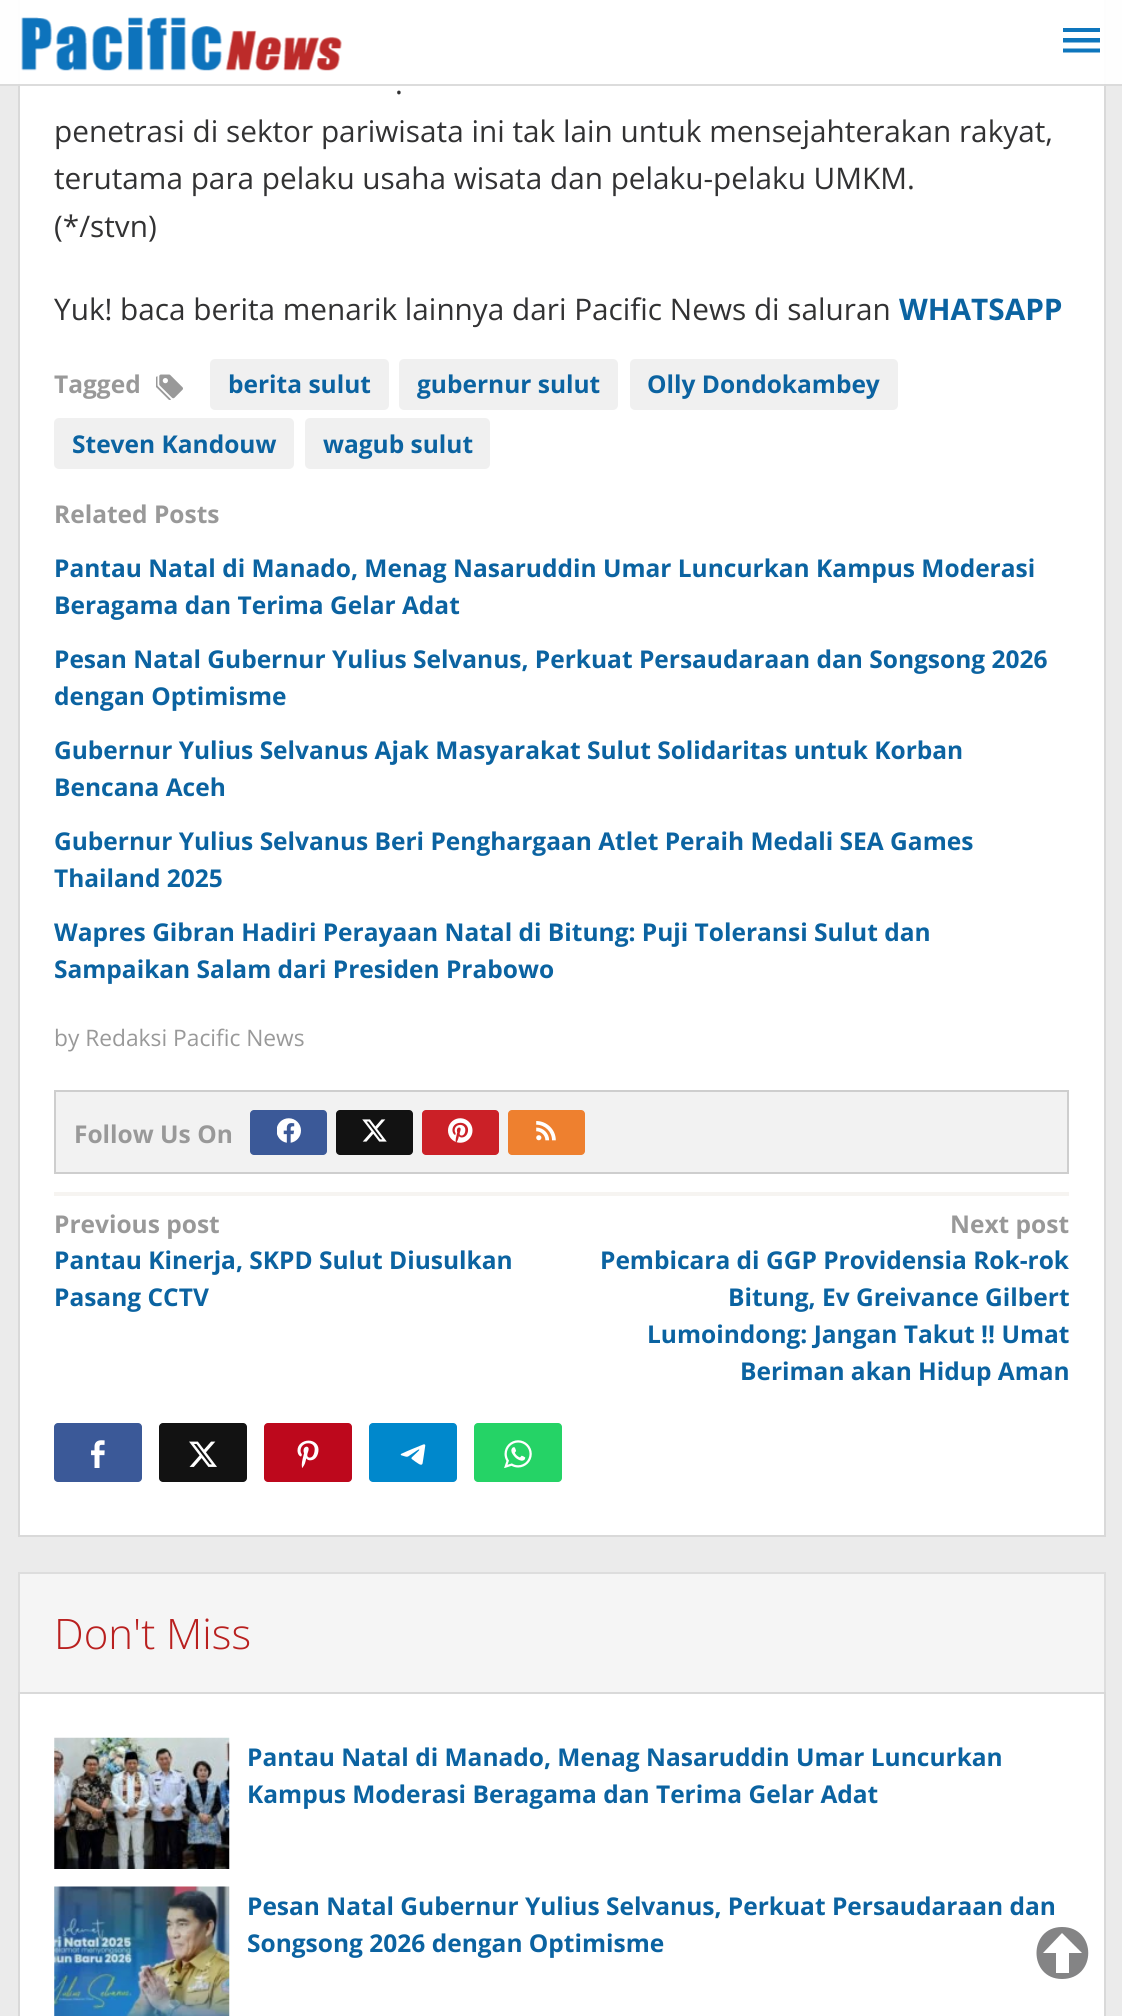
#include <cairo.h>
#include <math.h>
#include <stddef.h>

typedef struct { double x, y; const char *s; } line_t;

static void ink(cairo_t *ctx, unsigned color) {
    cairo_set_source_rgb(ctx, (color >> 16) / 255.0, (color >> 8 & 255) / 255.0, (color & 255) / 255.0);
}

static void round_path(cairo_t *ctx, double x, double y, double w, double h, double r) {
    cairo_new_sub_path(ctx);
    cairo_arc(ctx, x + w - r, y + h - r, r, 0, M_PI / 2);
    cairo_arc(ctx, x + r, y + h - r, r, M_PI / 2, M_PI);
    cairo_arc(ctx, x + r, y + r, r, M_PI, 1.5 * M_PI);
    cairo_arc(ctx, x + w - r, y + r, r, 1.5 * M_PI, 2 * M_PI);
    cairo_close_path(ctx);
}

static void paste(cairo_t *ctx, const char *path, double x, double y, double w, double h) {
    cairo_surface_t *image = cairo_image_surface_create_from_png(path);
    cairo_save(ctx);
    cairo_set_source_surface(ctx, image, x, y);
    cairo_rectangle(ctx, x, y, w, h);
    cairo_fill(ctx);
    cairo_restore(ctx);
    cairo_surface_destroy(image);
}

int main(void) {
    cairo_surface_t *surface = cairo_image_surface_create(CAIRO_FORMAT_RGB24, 1122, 2016);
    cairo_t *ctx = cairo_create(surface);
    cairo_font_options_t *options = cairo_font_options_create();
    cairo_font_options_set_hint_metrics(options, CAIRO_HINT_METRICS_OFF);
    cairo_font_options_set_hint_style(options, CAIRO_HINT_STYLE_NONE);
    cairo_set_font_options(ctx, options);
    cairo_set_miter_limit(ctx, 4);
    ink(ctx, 0xEBEBEB);
    cairo_paint(ctx);
    ink(ctx, 0xFFFFFF);
    cairo_rectangle(ctx, 19, -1, 1086, 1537);
    cairo_fill_preserve(ctx);
    ink(ctx, 0xD9D9D9);
    cairo_stroke(ctx);
    cairo_set_source_rgba(ctx, 1, 1, 1, 0.95);
    cairo_rectangle(ctx, 0, 0, 1122, 86);
    cairo_fill(ctx);
    cairo_set_source_rgba(ctx, 0, 0, 0, 0.14);
    cairo_rectangle(ctx, 0, 84, 1122, 2);
    cairo_fill(ctx);
    paste(ctx, "media/1.png", 21, 17, 321, 54);
    ink(ctx, 0x0E76BD);
    cairo_new_path(ctx);
    cairo_move_to(ctx, 1063, 52.5);
    cairo_line_to(ctx, 1100, 52.5);
    cairo_line_to(ctx, 1100, 48.5);
    cairo_line_to(ctx, 1063, 48.5);
    cairo_close_path(ctx);
    cairo_move_to(ctx, 1063, 42.5);
    cairo_line_to(ctx, 1100, 42.5);
    cairo_line_to(ctx, 1100, 38);
    cairo_line_to(ctx, 1063, 38);
    cairo_close_path(ctx);
    cairo_move_to(ctx, 1063, 28);
    cairo_line_to(ctx, 1063, 32);
    cairo_line_to(ctx, 1100, 32);
    cairo_line_to(ctx, 1100, 28);
    cairo_close_path(ctx);
    cairo_fill(ctx);
    cairo_select_font_face(ctx, "Open Sans", CAIRO_FONT_SLANT_NORMAL, CAIRO_FONT_WEIGHT_NORMAL);
    cairo_set_font_size(ctx, 29.75);
    ink(ctx, 0x323233);
    {
        static const line_t items[] = {
            {395, 94, "."},
            {54, 142, "penetrasi di sektor pariwisata ini tak lain untuk mensejahterakan rakyat,"},
            {54, 189, "terutama para pelaku usaha wisata dan pelaku-pelaku UMKM."},
            {54, 237, "(*/stvn)"},
            {54, 320, "Yuk! baca berita menarik lainnya dari Pacific News di saluran"},
        };
        for (size_t i = 0; i < sizeof items / sizeof *items; i++) {
            cairo_move_to(ctx, items[i].x, items[i].y);
            cairo_show_text(ctx, items[i].s);
        }
    }
    cairo_select_font_face(ctx, "Open Sans", CAIRO_FONT_SLANT_NORMAL, CAIRO_FONT_WEIGHT_BOLD);
    ink(ctx, 0x0B63A1);
    cairo_move_to(ctx, 899, 320);
    cairo_show_text(ctx, "WHATSAPP");
    cairo_set_font_size(ctx, 24.5);
    ink(ctx, 0x999999);
    cairo_move_to(ctx, 54, 393);
    cairo_show_text(ctx, "Tagged");
    paste(ctx, "media/2.png", 156, 374, 27, 26);
    ink(ctx, 0xF0F0F0);
    round_path(ctx, 210, 359, 179, 51, 5);
    cairo_fill(ctx);
    ink(ctx, 0x0B63A1);
    cairo_move_to(ctx, 228, 393);
    cairo_show_text(ctx, "berita sulut");
    ink(ctx, 0xF0F0F0);
    round_path(ctx, 399, 359, 219, 51, 5);
    cairo_fill(ctx);
    ink(ctx, 0x0B63A1);
    cairo_move_to(ctx, 417, 393);
    cairo_show_text(ctx, "gubernur sulut");
    ink(ctx, 0xF0F0F0);
    round_path(ctx, 630, 359, 268, 51, 5);
    cairo_fill(ctx);
    ink(ctx, 0x0B63A1);
    cairo_move_to(ctx, 647, 393);
    cairo_show_text(ctx, "Olly Dondokambey");
    ink(ctx, 0xF0F0F0);
    round_path(ctx, 54, 418, 240, 51, 5);
    cairo_fill(ctx);
    ink(ctx, 0x0B63A1);
    cairo_move_to(ctx, 72, 453);
    cairo_show_text(ctx, "Steven Kandouw");
    ink(ctx, 0xF0F0F0);
    round_path(ctx, 305, 418, 185, 51, 5);
    cairo_fill(ctx);
    ink(ctx, 0x0B63A1);
    cairo_move_to(ctx, 323, 453);
    cairo_show_text(ctx, "wagub sulut");
    ink(ctx, 0x999999);
    cairo_move_to(ctx, 54, 523);
    cairo_show_text(ctx, "Related Posts");
    ink(ctx, 0x0B63A1);
    {
        static const line_t items[] = {
            {54, 577, "Pantau Natal di Manado, Menag Nasaruddin Umar Luncurkan Kampus Moderasi"},
            {54, 614, "Beragama dan Terima Gelar Adat"},
            {54, 668, "Pesan Natal Gubernur Yulius Selvanus, Perkuat Persaudaraan dan Songsong 2026"},
            {54, 705, "dengan Optimisme"},
            {54, 759, "Gubernur Yulius Selvanus Ajak Masyarakat Sulut Solidaritas untuk Korban"},
            {54, 796, "Bencana Aceh"},
            {54, 850, "Gubernur Yulius Selvanus Beri Penghargaan Atlet Peraih Medali SEA Games"},
            {54, 887, "Thailand 2025"},
            {54, 941, "Wapres Gibran Hadiri Perayaan Natal di Bitung: Puji Toleransi Sulut dan"},
            {54, 978, "Sampaikan Salam dari Presiden Prabowo"},
        };
        for (size_t i = 0; i < sizeof items / sizeof *items; i++) {
            cairo_move_to(ctx, items[i].x, items[i].y);
            cairo_show_text(ctx, items[i].s);
        }
    }
    cairo_select_font_face(ctx, "Open Sans", CAIRO_FONT_SLANT_NORMAL, CAIRO_FONT_WEIGHT_NORMAL);
    cairo_set_font_size(ctx, 22.75);
    ink(ctx, 0x999999);
    cairo_move_to(ctx, 54, 1046);
    cairo_show_text(ctx, "by Redaksi Pacific News");
    ink(ctx, 0xF2F2F2);
    cairo_rectangle(ctx, 55, 1091, 1013, 82);
    cairo_fill_preserve(ctx);
    ink(ctx, 0xCECECE);
    cairo_stroke(ctx);
    cairo_select_font_face(ctx, "Open Sans", CAIRO_FONT_SLANT_NORMAL, CAIRO_FONT_WEIGHT_BOLD);
    cairo_set_font_size(ctx, 24.5);
    ink(ctx, 0x999999);
    cairo_move_to(ctx, 74, 1143);
    cairo_show_text(ctx, "Follow Us On");
    ink(ctx, 0x3B5998);
    round_path(ctx, 250, 1110, 77, 45, 4);
    cairo_fill(ctx);
    paste(ctx, "media/3.png", 277, 1118, 24, 25);
    ink(ctx, 0x121212);
    round_path(ctx, 336, 1110, 77, 45, 4);
    cairo_fill(ctx);
    paste(ctx, "media/4.png", 362, 1119, 25, 23);
    ink(ctx, 0xCB2027);
    round_path(ctx, 422, 1110, 77, 45, 4);
    cairo_fill(ctx);
    paste(ctx, "media/5.png", 448, 1118, 25, 25);
    ink(ctx, 0xEE802F);
    round_path(ctx, 508, 1110, 77, 45, 4);
    cairo_fill(ctx);
    paste(ctx, "media/6.png", 536, 1121, 20, 20);
    ink(ctx, 0xF6F4F1);
    cairo_rectangle(ctx, 54, 1192, 1015, 4);
    cairo_fill(ctx);
    ink(ctx, 0x999999);
    cairo_move_to(ctx, 54, 1233);
    cairo_show_text(ctx, "Previous post");
    ink(ctx, 0x0B63A1);
    cairo_move_to(ctx, 54, 1269);
    cairo_show_text(ctx, "Pantau Kinerja, SKPD Sulut Diusulkan");
    cairo_move_to(ctx, 54, 1306);
    cairo_show_text(ctx, "Pasang CCTV");
    ink(ctx, 0x999999);
    cairo_move_to(ctx, 950, 1233);
    cairo_show_text(ctx, "Next post");
    ink(ctx, 0x0B63A1);
    {
        static const line_t items[] = {
            {600, 1269, "Pembicara di GGP Providensia Rok-rok"},
            {728, 1306, "Bitung, Ev Greivance Gilbert"},
            {647, 1343, "Lumoindong: Jangan Takut !! Umat"},
            {740, 1380, "Beriman akan Hidup Aman"},
        };
        for (size_t i = 0; i < sizeof items / sizeof *items; i++) {
            cairo_move_to(ctx, items[i].x, items[i].y);
            cairo_show_text(ctx, items[i].s);
        }
    }
    ink(ctx, 0x3B5998);
    round_path(ctx, 54, 1423, 88, 59, 4);
    cairo_fill(ctx);
    paste(ctx, "media/7.png", 91, 1440, 14, 28);
    ink(ctx, 0x121212);
    round_path(ctx, 159, 1423, 88, 59, 4);
    cairo_fill(ctx);
    paste(ctx, "media/8.png", 189, 1441, 28, 26);
    ink(ctx, 0xBD081C);
    round_path(ctx, 264, 1423, 88, 59, 4);
    cairo_fill(ctx);
    paste(ctx, "media/9.png", 297, 1440, 22, 28);
    ink(ctx, 0x0088CC);
    round_path(ctx, 369, 1423, 88, 59, 4);
    cairo_fill(ctx);
    paste(ctx, "media/10.png", 400, 1444, 26, 21);
    ink(ctx, 0x25D366);
    round_path(ctx, 474, 1423, 88, 59, 4);
    cairo_fill(ctx);
    paste(ctx, "media/11.png", 504, 1440, 28, 28);
    ink(ctx, 0xF5F5F5);
    cairo_rectangle(ctx, 19, 1573, 1086, 120);
    cairo_fill_preserve(ctx);
    ink(ctx, 0xDDDDDD);
    cairo_stroke(ctx);
    cairo_select_font_face(ctx, "Open Sans Light", CAIRO_FONT_SLANT_NORMAL, CAIRO_FONT_WEIGHT_NORMAL);
    cairo_set_font_size(ctx, 42);
    ink(ctx, 0xB9201F);
    cairo_move_to(ctx, 54, 1649);
    cairo_show_text(ctx, "Don't Miss");
    ink(ctx, 0xFFFFFF);
    cairo_rectangle(ctx, 19, 1693, 1086, 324);
    cairo_fill_preserve(ctx);
    ink(ctx, 0xD9D9D9);
    cairo_stroke(ctx);
    paste(ctx, "media/12.png", 54, 1737, 176, 132);
    cairo_select_font_face(ctx, "Open Sans", CAIRO_FONT_SLANT_NORMAL, CAIRO_FONT_WEIGHT_BOLD);
    cairo_set_font_size(ctx, 24.5);
    ink(ctx, 0x0B63A1);
    cairo_move_to(ctx, 247, 1766);
    cairo_show_text(ctx, "Pantau Natal di Manado, Menag Nasaruddin Umar Luncurkan");
    cairo_move_to(ctx, 247, 1803);
    cairo_show_text(ctx, "Kampus Moderasi Beragama dan Terima Gelar Adat");
    paste(ctx, "media/13.png", 54, 1886, 176, 130);
    cairo_move_to(ctx, 247, 1915);
    cairo_show_text(ctx, "Pesan Natal Gubernur Yulius Selvanus, Perkuat Persaudaraan dan");
    cairo_move_to(ctx, 247, 1952);
    cairo_show_text(ctx, "Songsong 2026 dengan Optimisme");
    ink(ctx, 0x848485);
    cairo_new_path(ctx);
    cairo_move_to(ctx, 1062, 1927);
    cairo_curve_to(ctx, 1028, 1927, 1028, 1979, 1062, 1979);
    cairo_curve_to(ctx, 1097, 1979, 1097, 1927, 1062, 1927);
    cairo_close_path(ctx);
    cairo_move_to(ctx, 1062, 1933);
    cairo_line_to(ctx, 1082, 1953);
    cairo_line_to(ctx, 1069, 1953);
    cairo_line_to(ctx, 1069, 1973);
    cairo_line_to(ctx, 1056, 1973);
    cairo_line_to(ctx, 1056, 1953);
    cairo_line_to(ctx, 1043, 1953);
    cairo_close_path(ctx);
    cairo_fill(ctx);
    cairo_surface_write_to_png(surface, "image.png");
    cairo_font_options_destroy(options);
    cairo_destroy(ctx);
    cairo_surface_destroy(surface);
    return 0;
}
